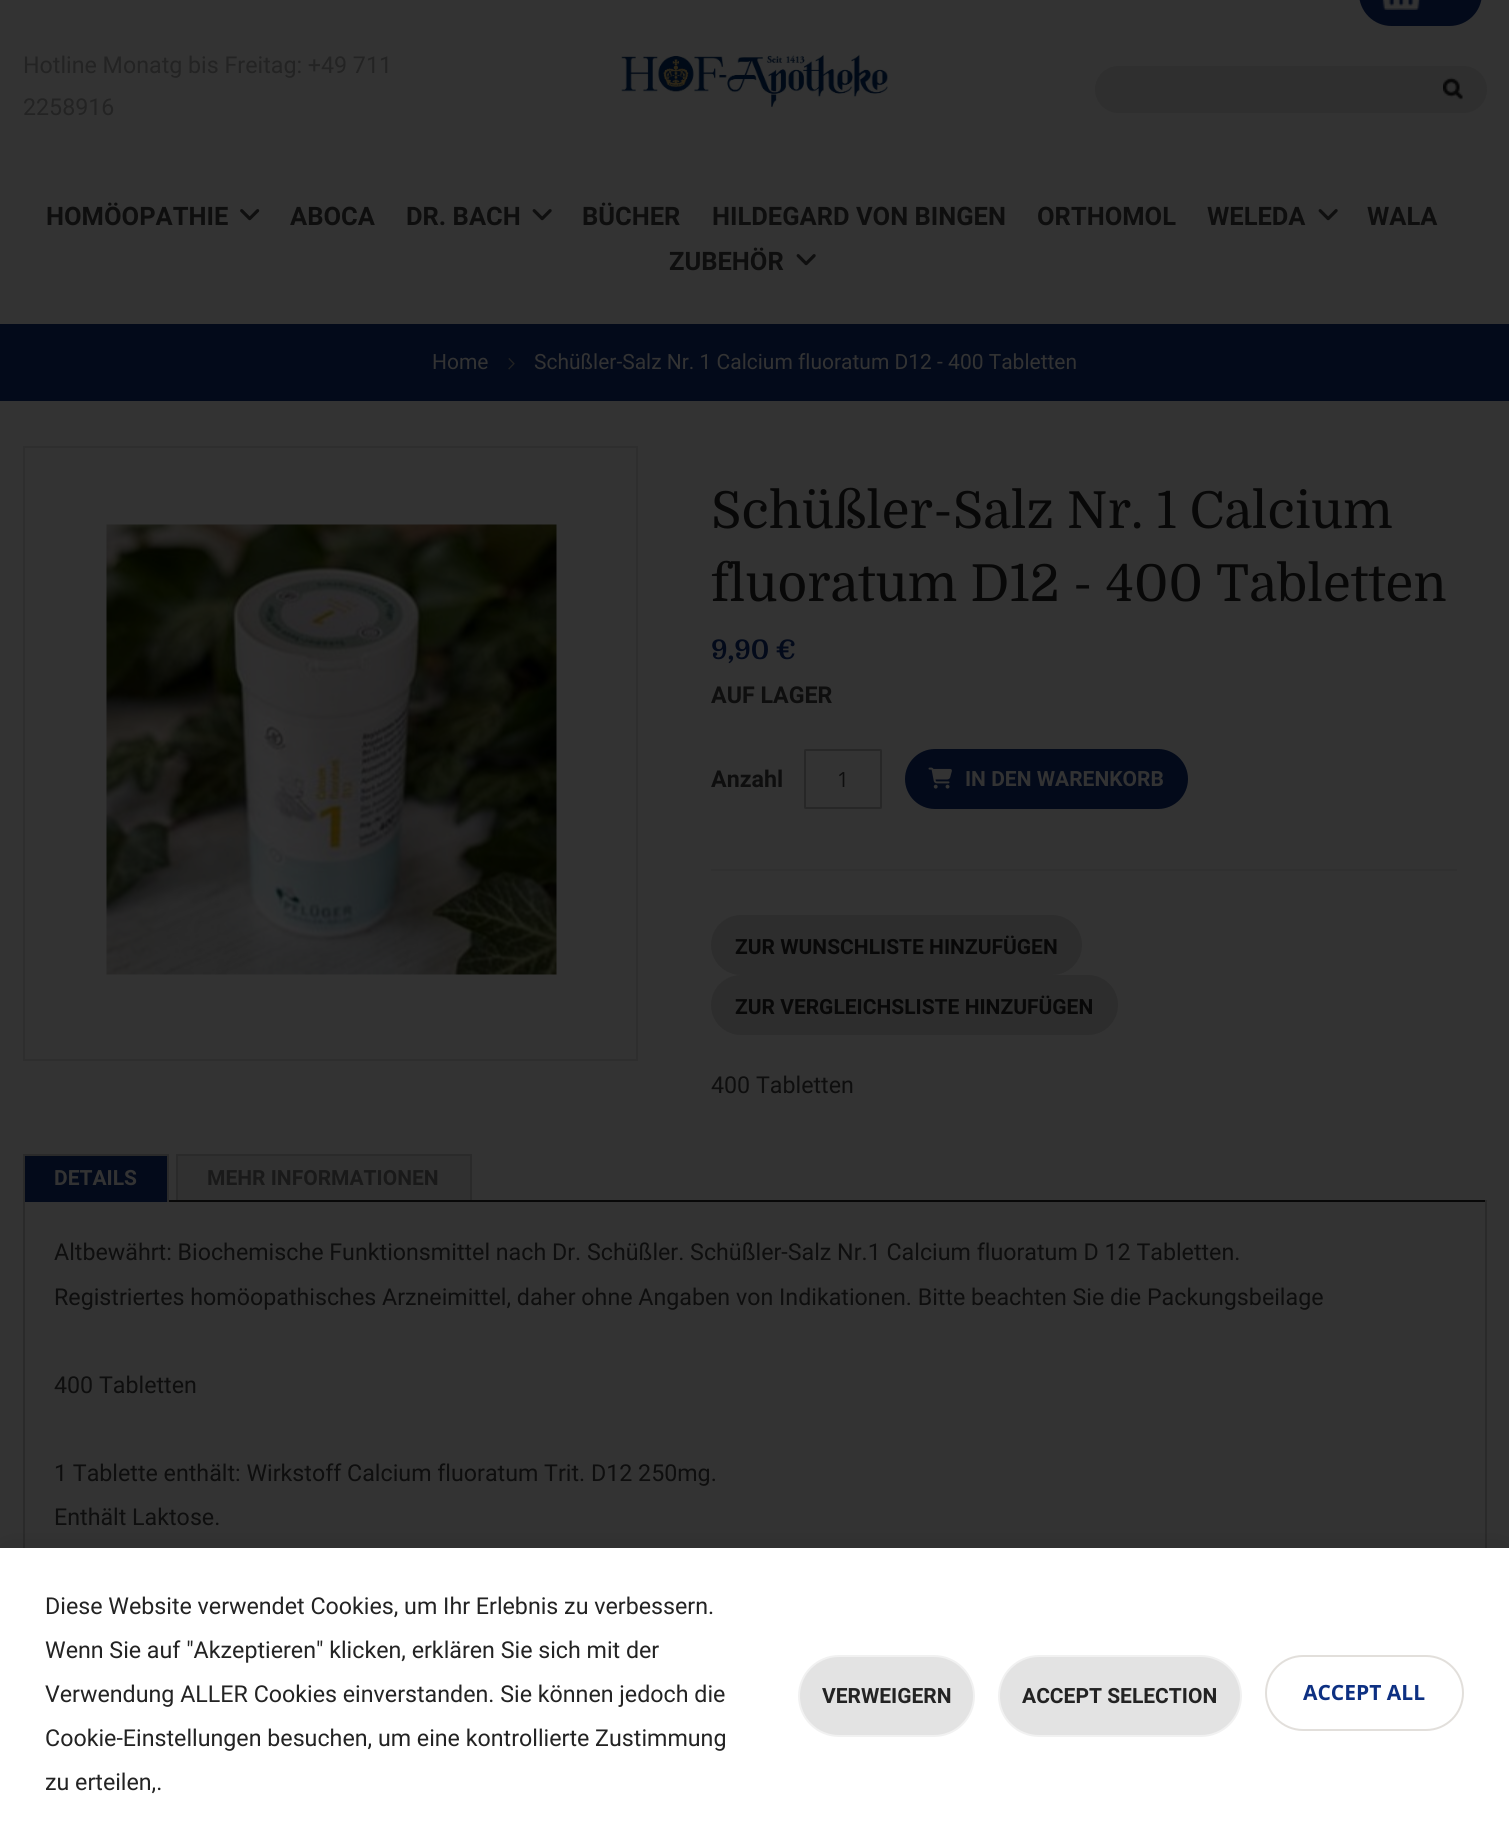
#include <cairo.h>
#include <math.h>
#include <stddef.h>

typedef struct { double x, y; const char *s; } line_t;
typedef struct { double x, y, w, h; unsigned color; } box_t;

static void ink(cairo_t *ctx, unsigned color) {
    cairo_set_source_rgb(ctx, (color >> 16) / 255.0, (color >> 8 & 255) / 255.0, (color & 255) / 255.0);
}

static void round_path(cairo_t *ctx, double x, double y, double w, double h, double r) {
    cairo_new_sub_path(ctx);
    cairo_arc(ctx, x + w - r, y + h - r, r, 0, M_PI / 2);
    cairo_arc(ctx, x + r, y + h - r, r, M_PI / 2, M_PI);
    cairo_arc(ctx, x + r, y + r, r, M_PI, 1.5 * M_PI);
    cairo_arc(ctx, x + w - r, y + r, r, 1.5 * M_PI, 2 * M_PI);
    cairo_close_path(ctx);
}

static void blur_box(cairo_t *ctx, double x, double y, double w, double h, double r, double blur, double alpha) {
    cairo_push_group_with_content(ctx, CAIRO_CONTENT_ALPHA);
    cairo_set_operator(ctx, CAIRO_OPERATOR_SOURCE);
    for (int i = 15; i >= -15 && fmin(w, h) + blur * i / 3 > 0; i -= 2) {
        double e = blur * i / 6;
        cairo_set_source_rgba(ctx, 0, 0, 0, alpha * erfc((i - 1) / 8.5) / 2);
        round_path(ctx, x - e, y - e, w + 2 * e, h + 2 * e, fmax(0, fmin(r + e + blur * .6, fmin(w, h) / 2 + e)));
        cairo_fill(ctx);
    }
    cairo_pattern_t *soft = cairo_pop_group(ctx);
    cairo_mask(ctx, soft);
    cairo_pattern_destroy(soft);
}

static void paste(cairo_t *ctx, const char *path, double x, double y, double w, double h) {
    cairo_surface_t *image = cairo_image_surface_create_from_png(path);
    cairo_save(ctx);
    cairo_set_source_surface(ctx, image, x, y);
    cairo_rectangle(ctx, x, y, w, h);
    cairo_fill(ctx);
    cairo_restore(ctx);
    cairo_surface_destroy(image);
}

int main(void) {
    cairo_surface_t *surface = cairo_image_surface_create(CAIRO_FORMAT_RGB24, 1509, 1843);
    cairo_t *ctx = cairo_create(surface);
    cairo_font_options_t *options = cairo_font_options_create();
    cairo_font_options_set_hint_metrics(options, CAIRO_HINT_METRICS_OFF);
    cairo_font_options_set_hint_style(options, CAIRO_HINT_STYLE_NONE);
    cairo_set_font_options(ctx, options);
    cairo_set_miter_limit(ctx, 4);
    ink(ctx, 0x333333);
    cairo_paint(ctx);
    cairo_select_font_face(ctx, "Roboto", CAIRO_FONT_SLANT_NORMAL, CAIRO_FONT_WEIGHT_NORMAL);
    cairo_set_font_size(ctx, 23.25);
    ink(ctx, 0x232323);
    cairo_move_to(ctx, 23, 73);
    cairo_show_text(ctx, "Hotline Monatg bis Freitag: +49 711");
    cairo_move_to(ctx, 23, 115);
    cairo_show_text(ctx, "2258916");
    paste(ctx, "media/1.png", 621, 54, 268, 54);
    ink(ctx, 0x030A1A);
    round_path(ctx, 1359, -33, 123, 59, 32.5);
    cairo_fill(ctx);
    paste(ctx, "media/2.png", 1382, 0, 39, 10);
    ink(ctx, 0x2F2F2F);
    round_path(ctx, 1095, 66, 392, 47, 23.5);
    cairo_fill(ctx);
    paste(ctx, "media/3.png", 1443, 77, 20, 23);
    cairo_select_font_face(ctx, "Roboto", CAIRO_FONT_SLANT_NORMAL, CAIRO_FONT_WEIGHT_BOLD);
    cairo_set_font_size(ctx, 25.5);
    ink(ctx, 0x0E0E0E);
    cairo_move_to(ctx, 46, 225);
    cairo_show_text(ctx, "HOMÖOPATHIE");
    paste(ctx, "media/4.png", 240, 209, 20, 12);
    cairo_move_to(ctx, 290, 225);
    cairo_show_text(ctx, "ABOCA");
    cairo_move_to(ctx, 406, 225);
    cairo_show_text(ctx, "DR. BACH");
    paste(ctx, "media/5.png", 532, 209, 20, 12);
    {
        static const line_t items[] = {
            {582, 225, "BÜCHER"},
            {712, 225, "HILDEGARD VON BINGEN"},
            {1037, 225, "ORTHOMOL"},
            {1207, 225, "WELEDA"},
        };
        for (size_t i = 0; i < sizeof items / sizeof *items; i++) {
            cairo_move_to(ctx, items[i].x, items[i].y);
            cairo_show_text(ctx, items[i].s);
        }
    }
    paste(ctx, "media/5.png", 1318, 209, 20, 12);
    cairo_move_to(ctx, 1367, 225);
    cairo_show_text(ctx, "WALA");
    cairo_move_to(ctx, 669, 270);
    cairo_show_text(ctx, "ZUBEHÖR");
    paste(ctx, "media/5.png", 796, 254, 20, 12);
    ink(ctx, 0x030A1A);
    cairo_rectangle(ctx, 0, 324, 1509, 77);
    cairo_fill(ctx);
    cairo_select_font_face(ctx, "Roboto", CAIRO_FONT_SLANT_NORMAL, CAIRO_FONT_WEIGHT_NORMAL);
    cairo_set_font_size(ctx, 21);
    ink(ctx, 0x333333);
    cairo_move_to(ctx, 432, 369);
    cairo_show_text(ctx, "Home");
    paste(ctx, "media/6.png", 508, 358, 7, 12);
    cairo_move_to(ctx, 534, 369);
    cairo_show_text(ctx, "Schüßler-Salz Nr. 1 Calcium fluoratum D12 - 400 Tabletten");
    cairo_rectangle(ctx, 24, 447, 613, 613);
    ink(ctx, 0x2E2E2E);
    cairo_stroke(ctx);
    paste(ctx, "media/7.png", 106, 524, 451, 451);
    cairo_select_font_face(ctx, "Domine", CAIRO_FONT_SLANT_NORMAL, CAIRO_FONT_WEIGHT_NORMAL);
    cairo_set_font_size(ctx, 51);
    ink(ctx, 0x080808);
    cairo_move_to(ctx, 711, 528);
    cairo_show_text(ctx, "Schüßler-Salz Nr. 1 Calcium");
    cairo_move_to(ctx, 711, 601);
    cairo_show_text(ctx, "fluoratum D12 - 400 Tabletten");
    cairo_select_font_face(ctx, "Domine", CAIRO_FONT_SLANT_NORMAL, CAIRO_FONT_WEIGHT_BOLD);
    cairo_set_font_size(ctx, 27);
    ink(ctx, 0x030A1A);
    cairo_move_to(ctx, 711, 659);
    cairo_show_text(ctx, "9,90 €");
    cairo_select_font_face(ctx, "Roboto", CAIRO_FONT_SLANT_NORMAL, CAIRO_FONT_WEIGHT_BOLD);
    cairo_set_font_size(ctx, 23.25);
    ink(ctx, 0x0E0E0E);
    cairo_move_to(ctx, 711, 703);
    cairo_show_text(ctx, "AUF LAGER");
    cairo_move_to(ctx, 711, 787);
    cairo_show_text(ctx, "Anzahl");
    round_path(ctx, 805, 750, 76, 58, 0.5);
    ink(ctx, 0x272727);
    cairo_stroke(ctx);
    cairo_select_font_face(ctx, "Open Sans", CAIRO_FONT_SLANT_NORMAL, CAIRO_FONT_WEIGHT_NORMAL);
    cairo_set_font_size(ctx, 21);
    ink(ctx, 0x0E0E0E);
    cairo_move_to(ctx, 837, 787);
    cairo_show_text(ctx, "1");
    ink(ctx, 0x030A1A);
    round_path(ctx, 906, 750, 281, 58, 29);
    cairo_fill_preserve(ctx);
    cairo_stroke(ctx);
    paste(ctx, "media/8.png", 928, 767, 24, 22);
    cairo_select_font_face(ctx, "Roboto", CAIRO_FONT_SLANT_NORMAL, CAIRO_FONT_WEIGHT_BOLD);
    ink(ctx, 0x333333);
    cairo_move_to(ctx, 965, 786);
    cairo_show_text(ctx, "IN DEN WARENKORB");
    ink(ctx, 0x303030);
    cairo_rectangle(ctx, 711, 869, 746, 2);
    cairo_fill(ctx);
    ink(ctx, 0x2D2D2D);
    round_path(ctx, 711, 915, 371, 60, 30);
    cairo_fill(ctx);
    ink(ctx, 0x080808);
    cairo_move_to(ctx, 735, 954);
    cairo_show_text(ctx, "ZUR WUNSCHLISTE HINZUFÜGEN");
    ink(ctx, 0x2D2D2D);
    round_path(ctx, 711, 975, 407, 60, 30);
    cairo_fill(ctx);
    ink(ctx, 0x080808);
    cairo_move_to(ctx, 735, 1014);
    cairo_show_text(ctx, "ZUR VERGLEICHSLISTE HINZUFÜGEN");
    cairo_select_font_face(ctx, "Roboto", CAIRO_FONT_SLANT_NORMAL, CAIRO_FONT_WEIGHT_NORMAL);
    cairo_set_font_size(ctx, 23.25);
    ink(ctx, 0x0E0E0E);
    cairo_move_to(ctx, 711, 1093);
    cairo_show_text(ctx, "400 Tabletten");
    {
        static const box_t items[] = {
            {25, 1156, 142, 46, 0x030A1A},
            {23, 1154, 145, 2, 0x2A2A2A},
            {167, 1154, 2, 48, 0x2A2A2A},
            {23, 1200, 2, 348, 0x2A2A2A},
            {23, 1154, 2, 48, 0x2A2A2A},
        };
        for (size_t i = 0; i < sizeof items / sizeof *items; i++) {
            ink(ctx, items[i].color);
            cairo_rectangle(ctx, items[i].x, items[i].y, items[i].w, items[i].h);
            cairo_fill(ctx);
        }
    }
    cairo_select_font_face(ctx, "Roboto", CAIRO_FONT_SLANT_NORMAL, CAIRO_FONT_WEIGHT_BOLD);
    cairo_set_font_size(ctx, 21);
    ink(ctx, 0x333333);
    cairo_move_to(ctx, 54, 1185);
    cairo_show_text(ctx, "DETAILS");
    {
        static const box_t items[] = {
            {178, 1156, 292, 44, 0x303030},
            {176, 1154, 295, 2, 0x2A2A2A},
            {470, 1154, 2, 46, 0x2A2A2A},
            {176, 1154, 2, 46, 0x2A2A2A},
        };
        for (size_t i = 0; i < sizeof items / sizeof *items; i++) {
            ink(ctx, items[i].color);
            cairo_rectangle(ctx, items[i].x, items[i].y, items[i].w, items[i].h);
            cairo_fill(ctx);
        }
    }
    ink(ctx, 0x191919);
    cairo_move_to(ctx, 207, 1185);
    cairo_show_text(ctx, "MEHR INFORMATIONEN");
    ink(ctx, 0x080808);
    cairo_rectangle(ctx, 169, 1200, 1318, 2);
    cairo_fill(ctx);
    ink(ctx, 0x2A2A2A);
    cairo_rectangle(ctx, 1485, 1200, 2, 348);
    cairo_fill(ctx);
    cairo_select_font_face(ctx, "Roboto", CAIRO_FONT_SLANT_NORMAL, CAIRO_FONT_WEIGHT_NORMAL);
    cairo_set_font_size(ctx, 23.25);
    ink(ctx, 0x0E0E0E);
    {
        static const line_t items[] = {
            {54, 1260, "Altbewährt: Biochemische Funktionsmittel nach Dr. Schüßler. Schüßler-Salz Nr.1 Calcium fluoratum D 12 Tabletten."},
            {54, 1305, "Registriertes homöopathisches Arzneimittel, daher ohne Angaben von Indikationen. Bitte beachten Sie die Packungsbeilage"},
            {54, 1393, "400 Tabletten"},
            {54, 1481, "1 Tablette enthält: Wirkstoff Calcium fluoratum Trit. D12 250mg."},
            {54, 1525, "Enthält Laktose."},
        };
        for (size_t i = 0; i < sizeof items / sizeof *items; i++) {
            cairo_move_to(ctx, items[i].x, items[i].y);
            cairo_show_text(ctx, items[i].s);
        }
    }
    ink(ctx, 0x000000);
    blur_box(ctx, 8, 1556, 1494, 280, 0, 15, 0.2);
    ink(ctx, 0xFFFFFF);
    cairo_rectangle(ctx, 0, 1548, 1509, 295);
    cairo_fill(ctx);
    ink(ctx, 0x232323);
    {
        static const line_t items[] = {
            {45, 1614, "Diese Website verwendet Cookies, um Ihr Erlebnis zu verbessern."},
            {45, 1658, "Wenn Sie auf \"Akzeptieren\" klicken, erklären Sie sich mit der"},
            {45, 1702, "Verwendung ALLER Cookies einverstanden. Sie können jedoch die"},
            {45, 1746, "Cookie-Einstellungen besuchen, um eine kontrollierte Zustimmung"},
            {45, 1790, "zu erteilen,."},
        };
        for (size_t i = 0; i < sizeof items / sizeof *items; i++) {
            cairo_move_to(ctx, items[i].x, items[i].y);
            cairo_show_text(ctx, items[i].s);
        }
    }
    ink(ctx, 0xE3E3E3);
    round_path(ctx, 799, 1656, 175, 80, 40);
    cairo_fill_preserve(ctx);
    ink(ctx, 0xF1F1F1);
    cairo_stroke(ctx);
    cairo_select_font_face(ctx, "Roboto", CAIRO_FONT_SLANT_NORMAL, CAIRO_FONT_WEIGHT_BOLD);
    cairo_set_font_size(ctx, 21);
    ink(ctx, 0x232323);
    cairo_move_to(ctx, 822, 1703);
    cairo_show_text(ctx, "VERWEIGERN");
    ink(ctx, 0xE3E3E3);
    round_path(ctx, 999, 1656, 242, 80, 40);
    cairo_fill_preserve(ctx);
    ink(ctx, 0xF1F1F1);
    cairo_stroke(ctx);
    ink(ctx, 0x232323);
    cairo_move_to(ctx, 1022, 1703);
    cairo_show_text(ctx, "ACCEPT SELECTION");
    round_path(ctx, 1266, 1656, 197, 74, 37);
    ink(ctx, 0xE2DFDB);
    cairo_stroke(ctx);
    cairo_select_font_face(ctx, "Open Sans", CAIRO_FONT_SLANT_NORMAL, CAIRO_FONT_WEIGHT_BOLD);
    ink(ctx, 0x0D3082);
    cairo_move_to(ctx, 1303, 1700);
    cairo_show_text(ctx, "ACCEPT ALL");
    cairo_surface_write_to_png(surface, "image.png");
    cairo_font_options_destroy(options);
    cairo_destroy(ctx);
    cairo_surface_destroy(surface);
    return 0;
}
